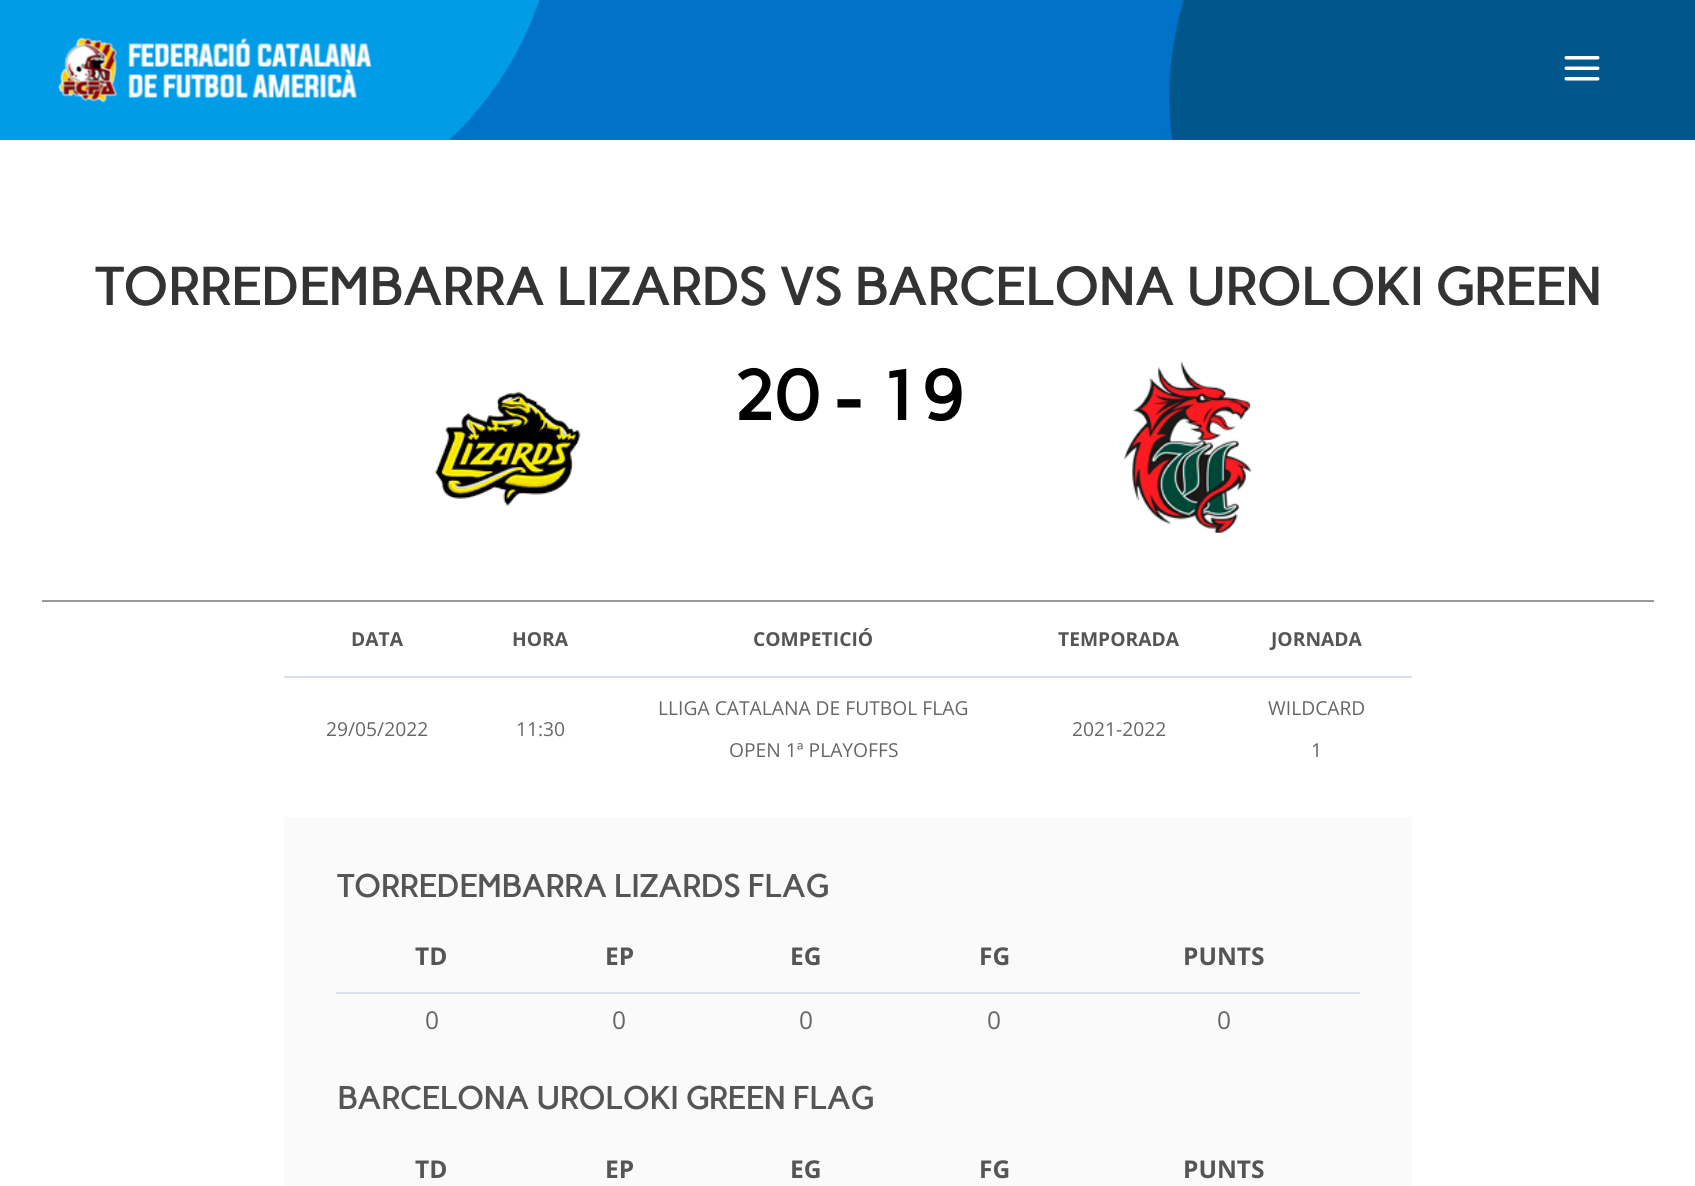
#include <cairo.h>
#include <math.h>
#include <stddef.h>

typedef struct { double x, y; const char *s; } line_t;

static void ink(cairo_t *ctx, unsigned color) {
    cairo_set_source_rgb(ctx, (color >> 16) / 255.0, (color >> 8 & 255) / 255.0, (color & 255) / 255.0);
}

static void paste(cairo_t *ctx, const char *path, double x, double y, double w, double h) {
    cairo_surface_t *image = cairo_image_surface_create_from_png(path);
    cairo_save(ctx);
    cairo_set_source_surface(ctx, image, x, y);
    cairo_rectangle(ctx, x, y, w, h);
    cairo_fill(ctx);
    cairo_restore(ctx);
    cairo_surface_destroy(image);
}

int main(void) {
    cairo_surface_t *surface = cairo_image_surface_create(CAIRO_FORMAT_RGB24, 1695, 1186);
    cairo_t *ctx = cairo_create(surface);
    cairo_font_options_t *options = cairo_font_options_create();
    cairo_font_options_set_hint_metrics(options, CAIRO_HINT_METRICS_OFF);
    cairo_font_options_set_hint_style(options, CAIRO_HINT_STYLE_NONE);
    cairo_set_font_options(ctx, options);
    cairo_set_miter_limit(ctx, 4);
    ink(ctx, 0xFFFFFF);
    cairo_paint(ctx);
    paste(ctx, "media/1.png", 0, 0, 1695, 140);
    paste(ctx, "media/2.png", 58, 37, 314, 66);
    paste(ctx, "media/3.png", 1564, 56, 36, 25);
    cairo_select_font_face(ctx, "Carme", CAIRO_FONT_SLANT_NORMAL, CAIRO_FONT_WEIGHT_BOLD);
    cairo_set_font_size(ctx, 52.5);
    ink(ctx, 0x333333);
    cairo_move_to(ctx, 95, 305);
    cairo_show_text(ctx, "TORREDEMBARRA LIZARDS VS BARCELONA UROLOKI GREEN");
    ink(ctx, 0x9A9A9A);
    cairo_rectangle(ctx, 42, 600, 1612, 2);
    cairo_fill(ctx);
    paste(ctx, "media/4.png", 435, 391, 146, 115);
    cairo_set_font_size(ctx, 70);
    ink(ctx, 0x000000);
    cairo_move_to(ctx, 732, 420);
    cairo_show_text(ctx, "20 - 19");
    paste(ctx, "media/5.png", 1123, 361, 129, 172);
    cairo_select_font_face(ctx, "Open Sans", CAIRO_FONT_SLANT_NORMAL, CAIRO_FONT_WEIGHT_BOLD);
    cairo_set_font_size(ctx, 19.25);
    ink(ctx, 0x555555);
    {
        static const line_t items[] = {
            {351, 646, "DATA"},
            {512, 646, "HORA"},
            {753, 646, "COMPETICIÓ"},
            {1058, 646, "TEMPORADA"},
            {1271, 646, "JORNADA"},
        };
        for (size_t i = 0; i < sizeof items / sizeof *items; i++) {
            cairo_move_to(ctx, items[i].x, items[i].y);
            cairo_show_text(ctx, items[i].s);
        }
    }
    cairo_select_font_face(ctx, "Open Sans", CAIRO_FONT_SLANT_NORMAL, CAIRO_FONT_WEIGHT_NORMAL);
    ink(ctx, 0x666666);
    {
        static const line_t items[] = {
            {326, 736, "29/05/2022"},
            {516, 736, "11:30"},
            {658, 715, "LLIGA CATALANA DE FUTBOL FLAG"},
            {729, 757, "OPEN 1ª PLAYOFFS"},
            {1072, 736, "2021-2022"},
        };
        for (size_t i = 0; i < sizeof items / sizeof *items; i++) {
            cairo_move_to(ctx, items[i].x, items[i].y);
            cairo_show_text(ctx, items[i].s);
        }
    }
    ink(ctx, 0xDBE1EB);
    cairo_rectangle(ctx, 284, 676, 1128, 2);
    cairo_fill(ctx);
    ink(ctx, 0x666666);
    cairo_move_to(ctx, 1268, 715);
    cairo_show_text(ctx, "WILDCARD");
    cairo_move_to(ctx, 1311, 757);
    cairo_show_text(ctx, "1");
    ink(ctx, 0xFAFAFA);
    cairo_rectangle(ctx, 284, 817, 1128, 369);
    cairo_fill(ctx);
    cairo_select_font_face(ctx, "Carme", CAIRO_FONT_SLANT_NORMAL, CAIRO_FONT_WEIGHT_BOLD);
    cairo_set_font_size(ctx, 31.5);
    ink(ctx, 0x555555);
    cairo_move_to(ctx, 337, 897);
    cairo_show_text(ctx, "TORREDEMBARRA LIZARDS FLAG");
    cairo_select_font_face(ctx, "Open Sans", CAIRO_FONT_SLANT_NORMAL, CAIRO_FONT_WEIGHT_BOLD);
    cairo_set_font_size(ctx, 24.5);
    {
        static const line_t items[] = {
            {415, 965, "TD"},
            {605, 965, "EP"},
            {790, 965, "EG"},
        };
        for (size_t i = 0; i < sizeof items / sizeof *items; i++) {
            cairo_move_to(ctx, items[i].x, items[i].y);
            cairo_show_text(ctx, items[i].s);
        }
    }
    ink(ctx, 0xFAFAFA);
    cairo_new_path(ctx);
    cairo_move_to(ctx, 830.5, 950);
    cairo_line_to(ctx, 818.5, 950);
    cairo_line_to(ctx, 824.5, 958.5);
    cairo_close_path(ctx);
    cairo_move_to(ctx, 828.5, 958.5);
    cairo_line_to(ctx, 840.5, 958.5);
    cairo_line_to(ctx, 834.5, 950);
    cairo_close_path(ctx);
    cairo_fill(ctx);
    ink(ctx, 0x555555);
    cairo_move_to(ctx, 979, 965);
    cairo_show_text(ctx, "FG");
    cairo_move_to(ctx, 1183, 965);
    cairo_show_text(ctx, "PUNTS");
    cairo_select_font_face(ctx, "Open Sans", CAIRO_FONT_SLANT_NORMAL, CAIRO_FONT_WEIGHT_NORMAL);
    ink(ctx, 0x666666);
    {
        static const line_t items[] = {
            {425, 1029, "0"},
            {612, 1029, "0"},
            {799, 1029, "0"},
            {987, 1029, "0"},
        };
        for (size_t i = 0; i < sizeof items / sizeof *items; i++) {
            cairo_move_to(ctx, items[i].x, items[i].y);
            cairo_show_text(ctx, items[i].s);
        }
    }
    ink(ctx, 0xDBE1EB);
    cairo_rectangle(ctx, 336, 992, 1024, 2);
    cairo_fill(ctx);
    ink(ctx, 0x666666);
    cairo_move_to(ctx, 1217, 1029);
    cairo_show_text(ctx, "0");
    cairo_select_font_face(ctx, "Carme", CAIRO_FONT_SLANT_NORMAL, CAIRO_FONT_WEIGHT_BOLD);
    cairo_set_font_size(ctx, 31.5);
    ink(ctx, 0x555555);
    cairo_move_to(ctx, 337, 1109);
    cairo_show_text(ctx, "BARCELONA UROLOKI GREEN FLAG");
    cairo_select_font_face(ctx, "Open Sans", CAIRO_FONT_SLANT_NORMAL, CAIRO_FONT_WEIGHT_BOLD);
    cairo_set_font_size(ctx, 24.5);
    {
        static const line_t items[] = {
            {415, 1178, "TD"},
            {605, 1178, "EP"},
            {790, 1178, "EG"},
        };
        for (size_t i = 0; i < sizeof items / sizeof *items; i++) {
            cairo_move_to(ctx, items[i].x, items[i].y);
            cairo_show_text(ctx, items[i].s);
        }
    }
    ink(ctx, 0xFAFAFA);
    cairo_new_path(ctx);
    cairo_move_to(ctx, 830.5, 1163.5);
    cairo_line_to(ctx, 818.5, 1163.5);
    cairo_line_to(ctx, 824.5, 1172);
    cairo_close_path(ctx);
    cairo_move_to(ctx, 828.5, 1172);
    cairo_line_to(ctx, 840.5, 1172);
    cairo_line_to(ctx, 834.5, 1163.5);
    cairo_close_path(ctx);
    cairo_fill(ctx);
    ink(ctx, 0x555555);
    cairo_move_to(ctx, 979, 1178);
    cairo_show_text(ctx, "FG");
    cairo_move_to(ctx, 1183, 1178);
    cairo_show_text(ctx, "PUNTS");
    cairo_surface_write_to_png(surface, "image.png");
    cairo_font_options_destroy(options);
    cairo_destroy(ctx);
    cairo_surface_destroy(surface);
    return 0;
}
